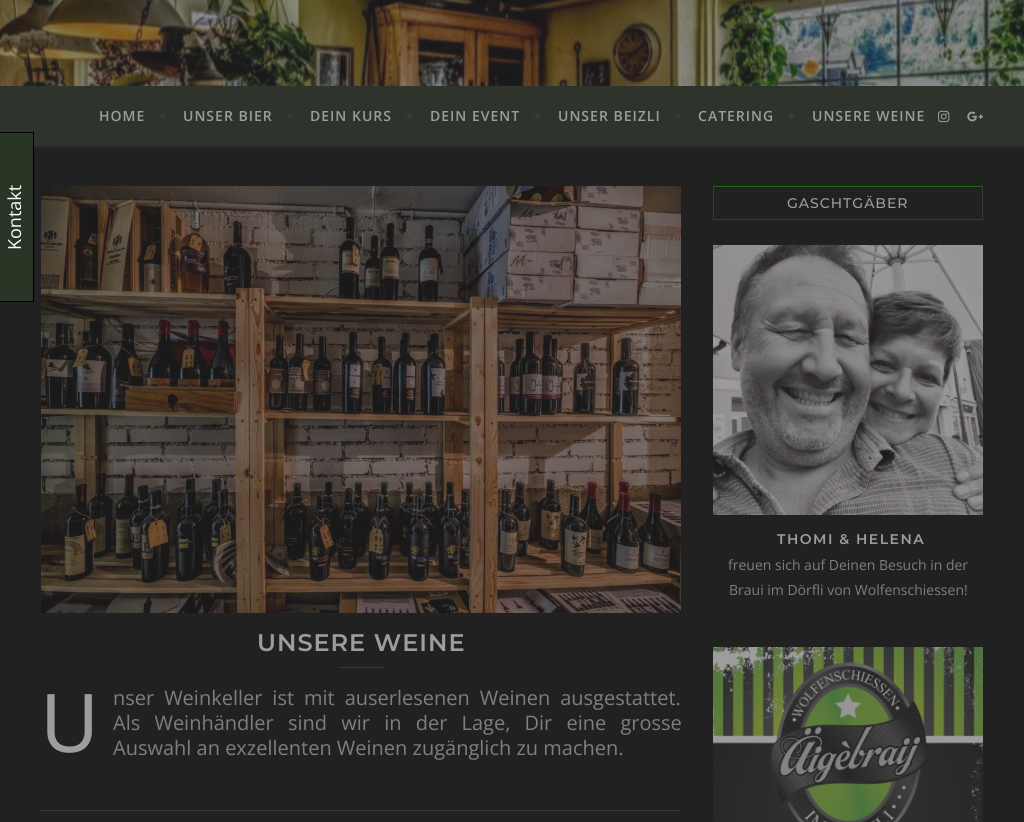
#include <cairo.h>
#include <math.h>
#include <stddef.h>

typedef struct { double x, y, w, h; unsigned color; } box_t;

static void ink(cairo_t *ctx, unsigned color) {
    cairo_set_source_rgb(ctx, (color >> 16) / 255.0, (color >> 8 & 255) / 255.0, (color & 255) / 255.0);
}

static void write_spaced(cairo_t *ctx, double x, double y, const char *s, double letter, double word) {
    cairo_move_to(ctx, x, y);
    while (*s) {
        char ch[5] = {0};
        int n = 0;
        do ch[n++] = *s++; while ((*s & 0xC0) == 0x80);
        cairo_show_text(ctx, ch);
        cairo_rel_move_to(ctx, letter + word * (*ch == ' '), 0);
    }
}

static void round_path(cairo_t *ctx, double x, double y, double w, double h, double r) {
    cairo_new_sub_path(ctx);
    cairo_arc(ctx, x + w - r, y + h - r, r, 0, M_PI / 2);
    cairo_arc(ctx, x + r, y + h - r, r, M_PI / 2, M_PI);
    cairo_arc(ctx, x + r, y + r, r, M_PI, 1.5 * M_PI);
    cairo_arc(ctx, x + w - r, y + r, r, 1.5 * M_PI, 2 * M_PI);
    cairo_close_path(ctx);
}

static void blur_box(cairo_t *ctx, double x, double y, double w, double h, double r, double blur, double alpha) {
    cairo_push_group_with_content(ctx, CAIRO_CONTENT_ALPHA);
    cairo_set_operator(ctx, CAIRO_OPERATOR_SOURCE);
    for (int i = 15; i >= -15 && fmin(w, h) + blur * i / 3 > 0; i -= 2) {
        double e = blur * i / 6;
        cairo_set_source_rgba(ctx, 0, 0, 0, alpha * erfc((i - 1) / 8.5) / 2);
        round_path(ctx, x - e, y - e, w + 2 * e, h + 2 * e, fmax(0, fmin(r + e + blur * .6, fmin(w, h) / 2 + e)));
        cairo_fill(ctx);
    }
    cairo_pattern_t *soft = cairo_pop_group(ctx);
    cairo_mask(ctx, soft);
    cairo_pattern_destroy(soft);
}

static void paste(cairo_t *ctx, const char *path, double x, double y, double w, double h) {
    cairo_surface_t *image = cairo_image_surface_create_from_png(path);
    cairo_save(ctx);
    cairo_set_source_surface(ctx, image, x, y);
    cairo_rectangle(ctx, x, y, w, h);
    cairo_fill(ctx);
    cairo_restore(ctx);
    cairo_surface_destroy(image);
}

int main(void) {
    cairo_surface_t *surface = cairo_image_surface_create(CAIRO_FORMAT_RGB24, 1024, 822);
    cairo_t *ctx = cairo_create(surface);
    cairo_font_options_t *options = cairo_font_options_create();
    cairo_font_options_set_hint_metrics(options, CAIRO_HINT_METRICS_OFF);
    cairo_font_options_set_hint_style(options, CAIRO_HINT_STYLE_NONE);
    cairo_set_font_options(ctx, options);
    cairo_set_miter_limit(ctx, 4);
    ink(ctx, 0x212121);
    cairo_paint(ctx);
    paste(ctx, "media/1.png", 0, 0, 1024, 86);
    ink(ctx, 0x9D9D9D);
    blur_box(ctx, 0, 87, 1024, 60, 0, 2.5, 0.1);
    {
        static const box_t items[] = {
            {0, 86, 1024, 60, 0x2E342C},
            {0, 133, 33, 168, 0x293525},
            {0, 132, 34, 1, 0x000000},
            {33, 132, 1, 170, 0x000000},
            {0, 301, 34, 1, 0x000000},
        };
        for (size_t i = 0; i < sizeof items / sizeof *items; i++) {
            ink(ctx, items[i].color);
            cairo_rectangle(ctx, items[i].x, items[i].y, items[i].w, items[i].h);
            cairo_fill(ctx);
        }
    }
    cairo_select_font_face(ctx, "Open Sans", CAIRO_FONT_SLANT_NORMAL, CAIRO_FONT_WEIGHT_NORMAL);
    cairo_set_font_size(ctx, 18);
    ink(ctx, 0xFFFFFF);
    cairo_save(ctx);
    cairo_translate(ctx, 21, 250);
    cairo_rotate(ctx, -90 * M_PI / 180);
    cairo_move_to(ctx, 0, 0);
    cairo_show_text(ctx, "Kontakt");
    cairo_restore(ctx);
    cairo_select_font_face(ctx, "Open Sans SemiBold", CAIRO_FONT_SLANT_NORMAL, CAIRO_FONT_WEIGHT_NORMAL);
    cairo_set_font_size(ctx, 14);
    ink(ctx, 0x9D9D9D);
    write_spaced(ctx, 99, 121, "HOME", 1, 0);
    ink(ctx, 0x393939);
    cairo_new_path(ctx);
    cairo_move_to(ctx, 159, 116);
    cairo_line_to(ctx, 162.5, 112.5);
    cairo_line_to(ctx, 166, 116);
    cairo_line_to(ctx, 162.5, 119.5);
    cairo_close_path(ctx);
    cairo_fill(ctx);
    ink(ctx, 0x9D9D9D);
    write_spaced(ctx, 183, 121, "UNSER BIER", 1, 0);
    ink(ctx, 0x393939);
    cairo_new_path(ctx);
    cairo_move_to(ctx, 286.5, 116);
    cairo_line_to(ctx, 290, 112.5);
    cairo_line_to(ctx, 293.5, 116);
    cairo_line_to(ctx, 290, 119.5);
    cairo_close_path(ctx);
    cairo_fill(ctx);
    ink(ctx, 0x9D9D9D);
    write_spaced(ctx, 310, 121, "DEIN KURS", 1, 0);
    ink(ctx, 0x393939);
    cairo_new_path(ctx);
    cairo_move_to(ctx, 406, 116);
    cairo_line_to(ctx, 409.5, 112.5);
    cairo_line_to(ctx, 413, 116);
    cairo_line_to(ctx, 409.5, 119.5);
    cairo_close_path(ctx);
    cairo_fill(ctx);
    ink(ctx, 0x9D9D9D);
    write_spaced(ctx, 430, 121, "DEIN EVENT", 1, 0);
    ink(ctx, 0x393939);
    cairo_new_path(ctx);
    cairo_move_to(ctx, 534, 116);
    cairo_line_to(ctx, 537.5, 112.5);
    cairo_line_to(ctx, 541, 116);
    cairo_line_to(ctx, 537.5, 119.5);
    cairo_close_path(ctx);
    cairo_fill(ctx);
    ink(ctx, 0x9D9D9D);
    write_spaced(ctx, 558, 121, "UNSER BEIZLI", 1, 0);
    ink(ctx, 0x393939);
    cairo_new_path(ctx);
    cairo_move_to(ctx, 674, 116);
    cairo_line_to(ctx, 678, 112.5);
    cairo_line_to(ctx, 681.5, 116);
    cairo_line_to(ctx, 678, 119.5);
    cairo_close_path(ctx);
    cairo_fill(ctx);
    ink(ctx, 0x9D9D9D);
    write_spaced(ctx, 698, 121, "CATERING", 1, 0);
    ink(ctx, 0x393939);
    cairo_new_path(ctx);
    cairo_move_to(ctx, 788, 116);
    cairo_line_to(ctx, 791.5, 112.5);
    cairo_line_to(ctx, 795, 116);
    cairo_line_to(ctx, 791.5, 119.5);
    cairo_close_path(ctx);
    cairo_fill(ctx);
    ink(ctx, 0x9D9D9D);
    write_spaced(ctx, 812, 121, "UNSERE WEINE", 1, 0);
    paste(ctx, "media/2.png", 938, 110, 12, 13);
    paste(ctx, "media/3.png", 967, 111, 16, 11);
    {
        static const box_t items[] = {
            {713, 186, 270, 1, 0x1C6918},
            {982, 186, 1, 34, 0x393939},
            {713, 219, 270, 1, 0x393939},
            {713, 186, 1, 34, 0x393939},
        };
        for (size_t i = 0; i < sizeof items / sizeof *items; i++) {
            ink(ctx, items[i].color);
            cairo_rectangle(ctx, items[i].x, items[i].y, items[i].w, items[i].h);
            cairo_fill(ctx);
        }
    }
    cairo_select_font_face(ctx, "Montserrat Medium", CAIRO_FONT_SLANT_NORMAL, CAIRO_FONT_WEIGHT_NORMAL);
    ink(ctx, 0x9D9D9D);
    write_spaced(ctx, 787, 208, "GASCHTGÄBER", 1, 0);
    paste(ctx, "media/4.png", 713, 245, 270, 270);
    cairo_select_font_face(ctx, "Montserrat SemiBold", CAIRO_FONT_SLANT_NORMAL, CAIRO_FONT_WEIGHT_NORMAL);
    write_spaced(ctx, 777, 544, "THOMI & HELENA", 1.5, 0);
    cairo_select_font_face(ctx, "Open Sans", CAIRO_FONT_SLANT_NORMAL, CAIRO_FONT_WEIGHT_NORMAL);
    ink(ctx, 0x7E7E7E);
    cairo_move_to(ctx, 728, 570);
    cairo_show_text(ctx, "freuen sich auf Deinen Besuch in der");
    cairo_move_to(ctx, 729, 595);
    cairo_show_text(ctx, "Braui im Dörfli von Wolfenschiessen!");
    paste(ctx, "media/5.png", 713, 647, 270, 175);
    paste(ctx, "media/6.png", 41, 186, 640, 427);
    cairo_select_font_face(ctx, "Montserrat SemiBold", CAIRO_FONT_SLANT_NORMAL, CAIRO_FONT_WEIGHT_NORMAL);
    cairo_set_font_size(ctx, 24);
    ink(ctx, 0x9D9D9D);
    write_spaced(ctx, 257, 651, "UNSERE WEINE", 1, 0);
    ink(ctx, 0x393939);
    cairo_rectangle(ctx, 339, 667, 45, 1);
    cairo_fill(ctx);
    cairo_select_font_face(ctx, "Noto Sans", CAIRO_FONT_SLANT_NORMAL, CAIRO_FONT_WEIGHT_NORMAL);
    cairo_set_font_size(ctx, 81);
    ink(ctx, 0x9D9D9D);
    cairo_move_to(ctx, 40, 752);
    cairo_show_text(ctx, "U");
    cairo_select_font_face(ctx, "Open Sans", CAIRO_FONT_SLANT_NORMAL, CAIRO_FONT_WEIGHT_NORMAL);
    cairo_set_font_size(ctx, 20);
    ink(ctx, 0x7E7E7E);
    write_spaced(ctx, 113, 705, "nser Weinkeller ist mit auserlesenen Weinen ausgestattet.", 0, 4.75);
    write_spaced(ctx, 113, 730, "Als Weinhändler sind wir in der Lage, Dir eine grosse", 0, 9);
    cairo_move_to(ctx, 113, 755);
    cairo_show_text(ctx, "Auswahl an exzellenten Weinen zugänglich zu machen.");
    ink(ctx, 0x393939);
    cairo_rectangle(ctx, 41, 810, 640, 1);
    cairo_fill(ctx);
    cairo_surface_write_to_png(surface, "image.png");
    cairo_font_options_destroy(options);
    cairo_destroy(ctx);
    cairo_surface_destroy(surface);
    return 0;
}
